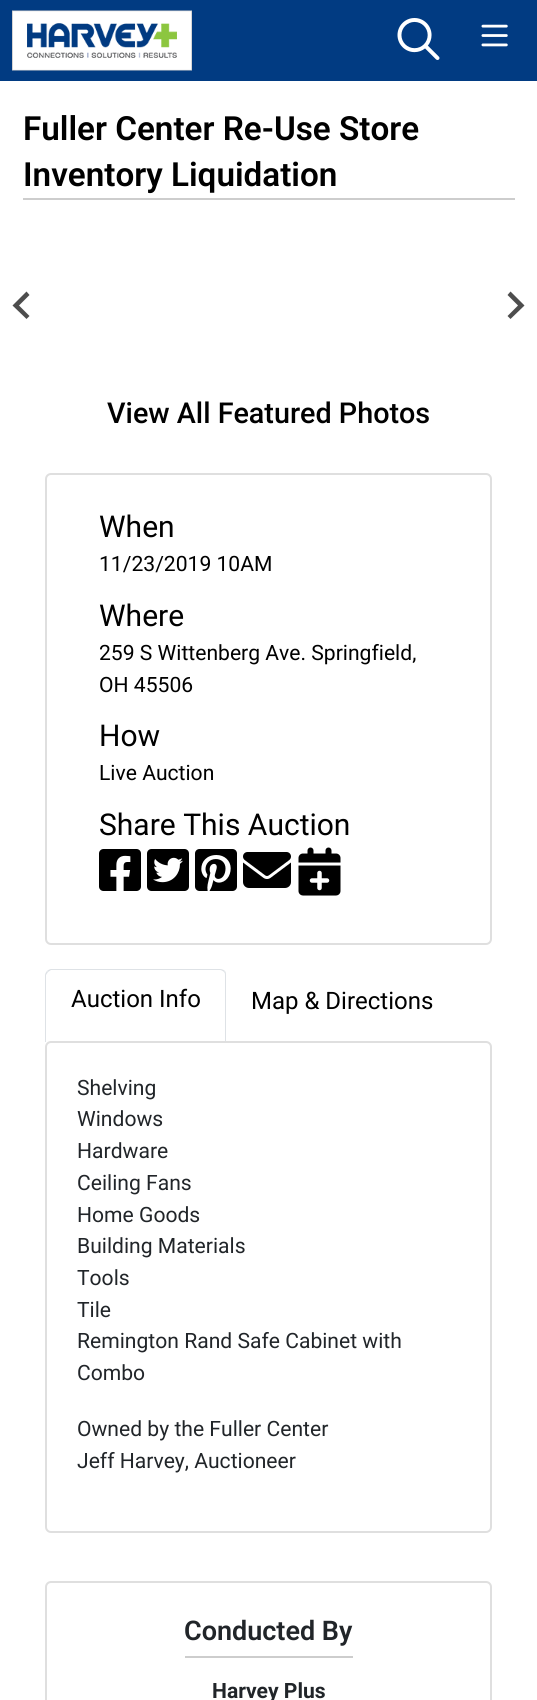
#include <cairo.h>
#include <math.h>
#include <stddef.h>

typedef struct { double x, y; const char *s; } line_t;

static void ink(cairo_t *ctx, unsigned color) {
    cairo_set_source_rgb(ctx, (color >> 16) / 255.0, (color >> 8 & 255) / 255.0, (color & 255) / 255.0);
}

static void round_path(cairo_t *ctx, double x, double y, double w, double h, double r) {
    cairo_new_sub_path(ctx);
    cairo_arc(ctx, x + w - r, y + h - r, r, 0, M_PI / 2);
    cairo_arc(ctx, x + r, y + h - r, r, M_PI / 2, M_PI);
    cairo_arc(ctx, x + r, y + r, r, M_PI, 1.5 * M_PI);
    cairo_arc(ctx, x + w - r, y + r, r, 1.5 * M_PI, 2 * M_PI);
    cairo_close_path(ctx);
}

static void paste(cairo_t *ctx, const char *path, double x, double y, double w, double h) {
    cairo_surface_t *image = cairo_image_surface_create_from_png(path);
    cairo_save(ctx);
    cairo_set_source_surface(ctx, image, x, y);
    cairo_rectangle(ctx, x, y, w, h);
    cairo_fill(ctx);
    cairo_restore(ctx);
    cairo_surface_destroy(image);
}

int main(void) {
    cairo_surface_t *surface = cairo_image_surface_create(CAIRO_FORMAT_RGB24, 537, 1700);
    cairo_t *ctx = cairo_create(surface);
    cairo_font_options_t *options = cairo_font_options_create();
    cairo_font_options_set_hint_metrics(options, CAIRO_HINT_METRICS_OFF);
    cairo_font_options_set_hint_style(options, CAIRO_HINT_STYLE_NONE);
    cairo_set_font_options(ctx, options);
    cairo_set_miter_limit(ctx, 4);
    ink(ctx, 0xFFFFFF);
    cairo_paint(ctx);
    ink(ctx, 0x013B82);
    cairo_rectangle(ctx, 0, 0, 537, 81);
    cairo_fill(ctx);
    paste(ctx, "media/1.png", 12, 10, 180, 61);
    paste(ctx, "media/2.png", 397, 18, 43, 42);
    paste(ctx, "media/3.png", 481, 24, 27, 23);
    ink(ctx, 0xCDCDCD);
    cairo_rectangle(ctx, 23, 198, 492, 2);
    cairo_fill(ctx);
    cairo_select_font_face(ctx, "Roboto SemiBold", CAIRO_FONT_SLANT_NORMAL, CAIRO_FONT_WEIGHT_NORMAL);
    cairo_set_font_size(ctx, 33.25);
    ink(ctx, 0x000000);
    cairo_move_to(ctx, 23, 140);
    cairo_show_text(ctx, "Fuller Center Re-Use Store");
    cairo_move_to(ctx, 23, 186);
    cairo_show_text(ctx, "Inventory Liquidation");
    ink(ctx, 0x4D4D4D);
    cairo_new_path(ctx);
    cairo_move_to(ctx, 26.5, 291.5);
    cairo_line_to(ctx, 29.5, 295);
    cairo_line_to(ctx, 19, 305.5);
    cairo_line_to(ctx, 29.5, 316);
    cairo_line_to(ctx, 26.5, 319);
    cairo_line_to(ctx, 12.5, 305.5);
    cairo_close_path(ctx);
    cairo_fill(ctx);
    cairo_new_path(ctx);
    cairo_move_to(ctx, 510.5, 291.5);
    cairo_line_to(ctx, 507.5, 295);
    cairo_line_to(ctx, 518, 305.5);
    cairo_line_to(ctx, 507.5, 316);
    cairo_line_to(ctx, 510.5, 319);
    cairo_line_to(ctx, 524.5, 305.5);
    cairo_close_path(ctx);
    cairo_fill(ctx);
    cairo_select_font_face(ctx, "Roboto Medium", CAIRO_FONT_SLANT_NORMAL, CAIRO_FONT_WEIGHT_NORMAL);
    cairo_set_font_size(ctx, 28.75);
    ink(ctx, 0x000000);
    cairo_move_to(ctx, 107, 423);
    cairo_show_text(ctx, "View All Featured Photos");
    round_path(ctx, 46, 474, 445, 470, 5);
    ink(ctx, 0xDFDFDF);
    cairo_stroke(ctx);
    cairo_select_font_face(ctx, "Roboto", CAIRO_FONT_SLANT_NORMAL, CAIRO_FONT_WEIGHT_NORMAL);
    cairo_set_font_size(ctx, 30);
    ink(ctx, 0x000000);
    cairo_move_to(ctx, 99, 537);
    cairo_show_text(ctx, "When");
    cairo_set_font_size(ctx, 21.1);
    cairo_move_to(ctx, 99, 571);
    cairo_show_text(ctx, "11/23/2019 10AM");
    cairo_set_font_size(ctx, 30);
    cairo_move_to(ctx, 99, 626);
    cairo_show_text(ctx, "Where");
    cairo_set_font_size(ctx, 21.1);
    cairo_move_to(ctx, 99, 660);
    cairo_show_text(ctx, "259 S Wittenberg Ave. Springfield,");
    cairo_move_to(ctx, 99, 692);
    cairo_show_text(ctx, "OH 45506");
    cairo_set_font_size(ctx, 30);
    cairo_move_to(ctx, 99, 746);
    cairo_show_text(ctx, "How");
    cairo_set_font_size(ctx, 21.1);
    cairo_move_to(ctx, 99, 780);
    cairo_show_text(ctx, "Live Auction");
    cairo_set_font_size(ctx, 30);
    cairo_move_to(ctx, 99, 835);
    cairo_show_text(ctx, "Share This Auction");
    paste(ctx, "media/4.png", 99, 849, 42, 42);
    paste(ctx, "media/5.png", 147, 849, 42, 42);
    paste(ctx, "media/6.png", 195, 849, 42, 42);
    paste(ctx, "media/7.png", 243, 852, 48, 36);
    paste(ctx, "media/8.png", 298, 847, 43, 49);
    ink(ctx, 0xDEE2E6);
    cairo_new_path(ctx);
    cairo_move_to(ctx, 51, 969);
    cairo_curve_to(ctx, 50, 969, 48, 970, 47, 971);
    cairo_line_to(ctx, 48, 972);
    cairo_line_to(ctx, 51, 970);
    cairo_line_to(ctx, 220, 970);
    cairo_curve_to(ctx, 221, 970, 223, 971, 224, 972);
    cairo_line_to(ctx, 225, 971);
    cairo_curve_to(ctx, 224, 970, 222, 969, 220, 969);
    cairo_close_path(ctx);
    cairo_fill(ctx);
    cairo_new_path(ctx);
    cairo_move_to(ctx, 225, 971);
    cairo_curve_to(ctx, 226, 972, 226, 974, 226, 975);
    cairo_line_to(ctx, 226, 1042);
    cairo_line_to(ctx, 225, 1041);
    cairo_line_to(ctx, 225, 975);
    cairo_curve_to(ctx, 225, 974, 225, 973, 224, 972);
    cairo_close_path(ctx);
    cairo_fill(ctx);
    ink(ctx, 0xFFFFFF);
    cairo_new_path(ctx);
    cairo_move_to(ctx, 226, 1042);
    cairo_line_to(ctx, 225, 1041);
    cairo_line_to(ctx, 46, 1041);
    cairo_line_to(ctx, 46, 1042);
    cairo_close_path(ctx);
    cairo_fill(ctx);
    ink(ctx, 0xDEE2E6);
    cairo_new_path(ctx);
    cairo_move_to(ctx, 45, 975);
    cairo_line_to(ctx, 45, 1042);
    cairo_line_to(ctx, 46, 1042);
    cairo_line_to(ctx, 46, 1041);
    cairo_line_to(ctx, 46, 975);
    cairo_line_to(ctx, 48, 972);
    cairo_line_to(ctx, 47, 971);
    cairo_curve_to(ctx, 46, 972, 45, 974, 45, 975);
    cairo_close_path(ctx);
    cairo_fill(ctx);
    cairo_set_font_size(ctx, 24);
    ink(ctx, 0x000000);
    cairo_move_to(ctx, 71, 1007);
    cairo_show_text(ctx, "Auction Info");
    cairo_move_to(ctx, 251, 1009);
    cairo_show_text(ctx, "Map & Directions");
    ink(ctx, 0xFFFFFF);
    round_path(ctx, 46, 1042, 445, 490, 5);
    cairo_fill_preserve(ctx);
    ink(ctx, 0xDFDFDF);
    cairo_stroke(ctx);
    cairo_set_font_size(ctx, 21.1);
    ink(ctx, 0x212529);
    {
        static const line_t items[] = {
            {77, 1095, "Shelving"},
            {77, 1126, "Windows"},
            {77, 1158, "Hardware"},
            {77, 1190, "Ceiling Fans"},
            {77, 1222, "Home Goods"},
            {77, 1253, "Building Materials"},
            {77, 1285, "Tools"},
            {77, 1317, "Tile"},
            {77, 1348, "Remington Rand Safe Cabinet with"},
            {77, 1380, "Combo"},
            {77, 1436, "Owned by the Fuller Center"},
            {77, 1468, "Jeff Harvey, Auctioneer"},
        };
        for (size_t i = 0; i < sizeof items / sizeof *items; i++) {
            cairo_move_to(ctx, items[i].x, items[i].y);
            cairo_show_text(ctx, items[i].s);
        }
    }
    round_path(ctx, 46, 1582, 445, 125, 5);
    ink(ctx, 0xDFDFDF);
    cairo_stroke(ctx);
    ink(ctx, 0xCDCDCD);
    cairo_rectangle(ctx, 185, 1656, 168, 2);
    cairo_fill(ctx);
    cairo_select_font_face(ctx, "Roboto SemiBold", CAIRO_FONT_SLANT_NORMAL, CAIRO_FONT_WEIGHT_NORMAL);
    cairo_set_font_size(ctx, 27);
    ink(ctx, 0x212529);
    cairo_move_to(ctx, 184, 1640);
    cairo_show_text(ctx, "Conducted By");
    cairo_select_font_face(ctx, "Roboto", CAIRO_FONT_SLANT_NORMAL, CAIRO_FONT_WEIGHT_BOLD);
    cairo_set_font_size(ctx, 21.1);
    cairo_move_to(ctx, 212, 1698);
    cairo_show_text(ctx, "Harvey Plus");
    cairo_surface_write_to_png(surface, "image.png");
    cairo_font_options_destroy(options);
    cairo_destroy(ctx);
    cairo_surface_destroy(surface);
    return 0;
}
